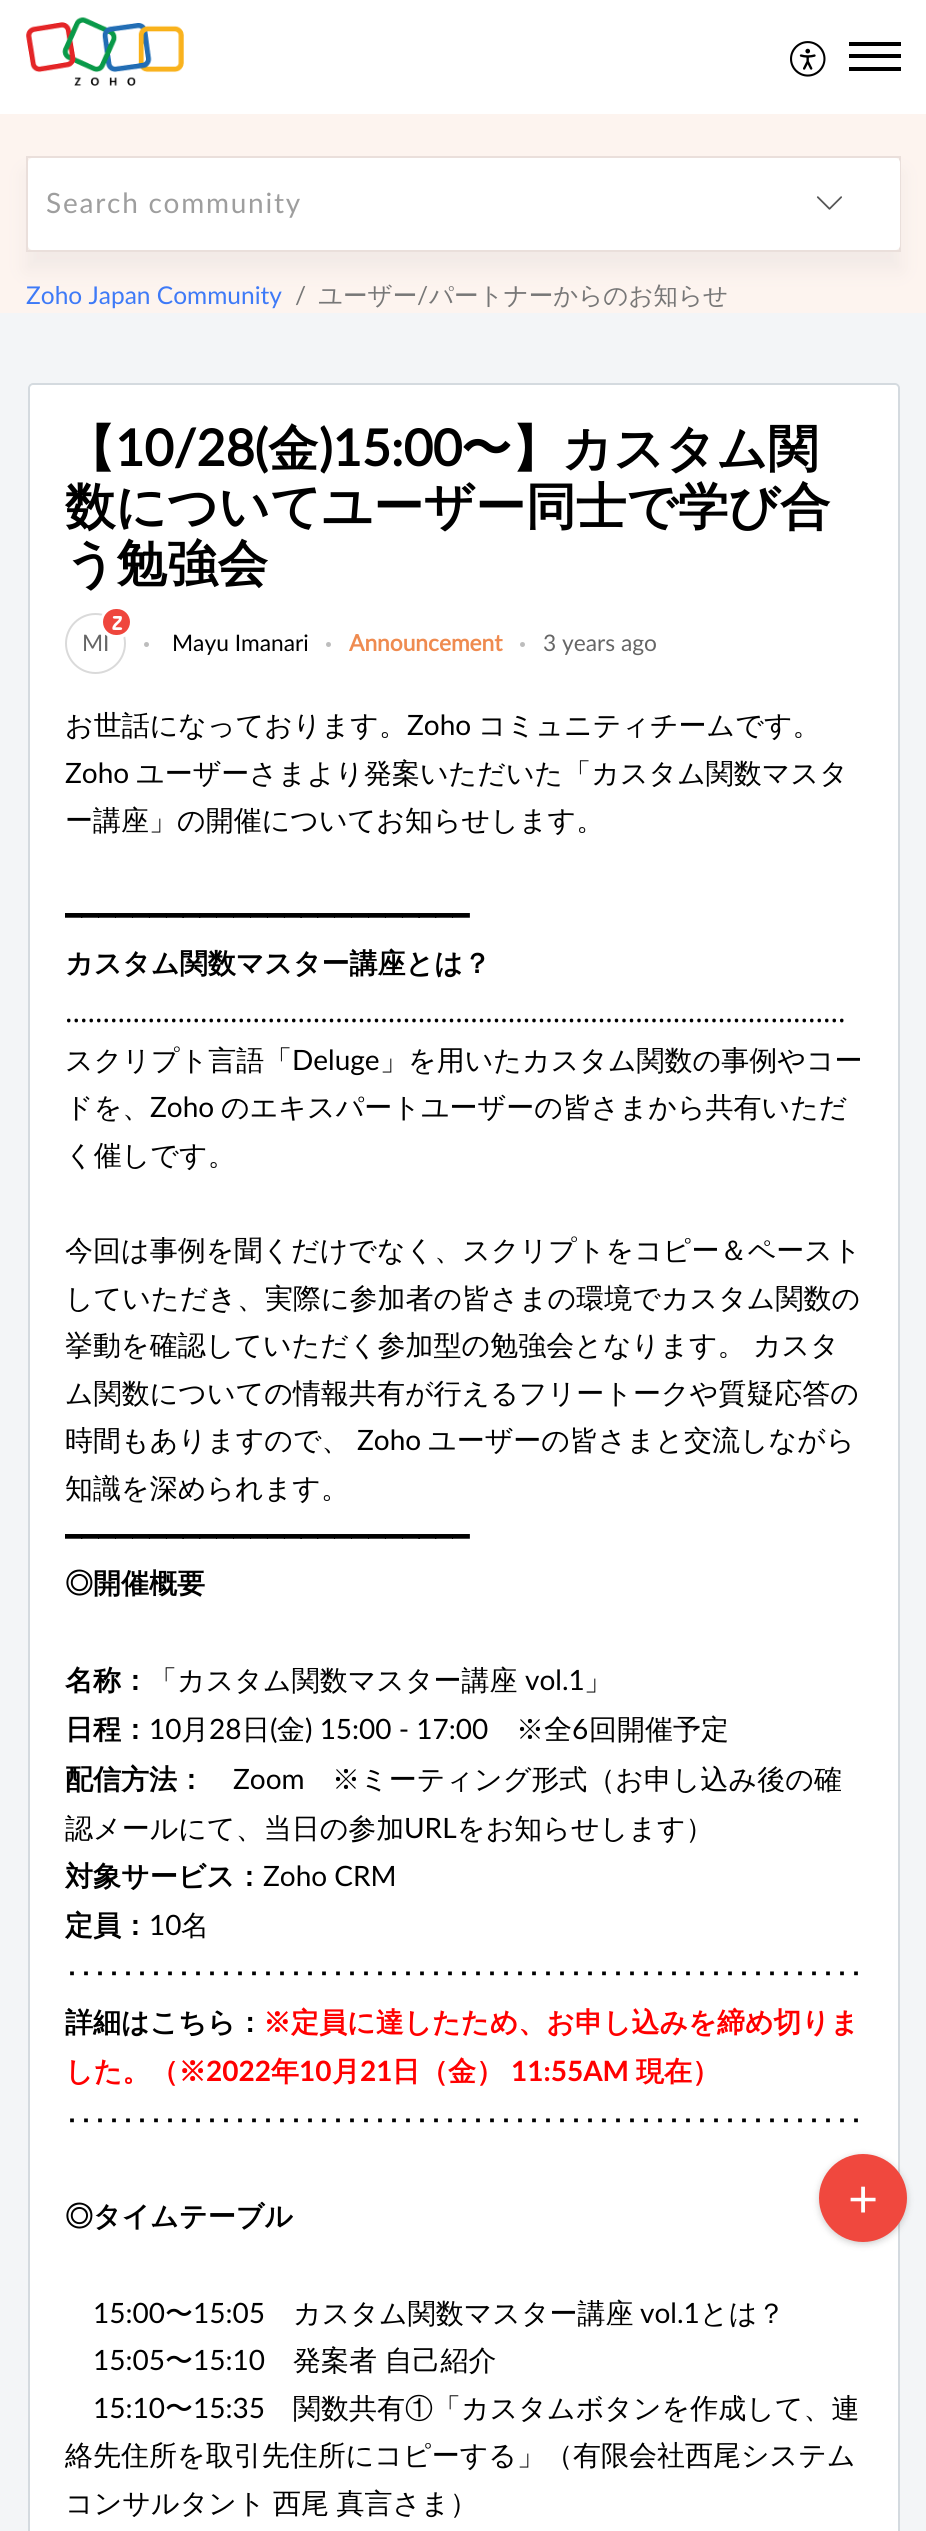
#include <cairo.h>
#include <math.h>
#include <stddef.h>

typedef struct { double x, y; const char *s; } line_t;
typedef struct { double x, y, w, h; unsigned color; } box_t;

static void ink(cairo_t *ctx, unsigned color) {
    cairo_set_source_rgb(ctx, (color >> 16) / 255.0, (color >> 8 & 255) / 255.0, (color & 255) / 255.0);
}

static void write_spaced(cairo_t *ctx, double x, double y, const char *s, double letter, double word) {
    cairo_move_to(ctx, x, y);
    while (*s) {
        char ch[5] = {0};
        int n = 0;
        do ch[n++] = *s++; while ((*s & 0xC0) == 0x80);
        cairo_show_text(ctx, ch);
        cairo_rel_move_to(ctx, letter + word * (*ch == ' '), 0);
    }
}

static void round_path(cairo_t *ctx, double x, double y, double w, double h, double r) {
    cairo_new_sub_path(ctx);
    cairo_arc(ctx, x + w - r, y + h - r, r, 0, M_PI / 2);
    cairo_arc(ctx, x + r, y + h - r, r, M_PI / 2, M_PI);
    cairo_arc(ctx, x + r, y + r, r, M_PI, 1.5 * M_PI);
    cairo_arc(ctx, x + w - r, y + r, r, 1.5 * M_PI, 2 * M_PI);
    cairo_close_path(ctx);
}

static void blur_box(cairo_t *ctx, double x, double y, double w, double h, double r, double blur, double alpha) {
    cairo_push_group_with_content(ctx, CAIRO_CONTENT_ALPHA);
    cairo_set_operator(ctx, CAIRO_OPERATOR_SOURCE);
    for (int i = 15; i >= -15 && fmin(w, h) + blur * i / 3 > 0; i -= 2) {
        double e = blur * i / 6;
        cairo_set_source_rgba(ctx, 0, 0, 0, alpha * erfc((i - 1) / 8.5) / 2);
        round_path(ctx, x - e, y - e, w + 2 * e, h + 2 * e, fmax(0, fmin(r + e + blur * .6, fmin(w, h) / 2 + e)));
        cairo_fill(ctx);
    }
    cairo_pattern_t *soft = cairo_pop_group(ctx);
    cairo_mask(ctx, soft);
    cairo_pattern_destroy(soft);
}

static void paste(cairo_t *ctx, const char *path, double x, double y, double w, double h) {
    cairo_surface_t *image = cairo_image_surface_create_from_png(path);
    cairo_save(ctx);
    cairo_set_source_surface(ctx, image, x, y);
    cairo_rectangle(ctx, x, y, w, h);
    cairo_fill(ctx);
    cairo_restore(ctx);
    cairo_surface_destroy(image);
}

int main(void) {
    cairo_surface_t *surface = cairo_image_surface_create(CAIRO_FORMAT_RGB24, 926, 2531);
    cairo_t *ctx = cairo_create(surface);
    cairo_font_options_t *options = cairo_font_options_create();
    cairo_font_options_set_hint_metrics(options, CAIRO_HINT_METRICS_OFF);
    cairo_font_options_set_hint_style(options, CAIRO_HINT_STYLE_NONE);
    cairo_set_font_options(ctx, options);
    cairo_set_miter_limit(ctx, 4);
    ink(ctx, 0xF3F5F7);
    cairo_paint(ctx);
    ink(ctx, 0xFFFFFF);
    cairo_rectangle(ctx, 0, 0, 926, 114);
    cairo_fill(ctx);
    paste(ctx, "media/1.png", 26, 17, 158, 69);
    paste(ctx, "media/2.png", 790, 41, 36, 36);
    {
        static const box_t items[] = {
            {849, 54, 52, 4, 0x000000},
            {849, 42, 52, 4, 0x000000},
            {849, 67, 52, 4, 0x000000},
            {0, 114, 926, 199, 0xFDF4EF},
        };
        for (size_t i = 0; i < sizeof items / sizeof *items; i++) {
            ink(ctx, items[i].color);
            cairo_rectangle(ctx, items[i].x, items[i].y, items[i].w, items[i].h);
            cairo_fill(ctx);
        }
    }
    ink(ctx, 0xF0E8E5);
    blur_box(ctx, 26, 173, 875, 97, 0, 9, 0.84);
    cairo_rectangle(ctx, 27, 157, 873, 94);
    ink(ctx, 0xEADFDB);
    cairo_stroke(ctx);
    ink(ctx, 0xFFFFFF);
    round_path(ctx, 28, 158, 872, 92, 5);
    cairo_fill(ctx);
    round_path(ctx, 28, 158, 732, 92, 5);
    cairo_fill(ctx);
    cairo_select_font_face(ctx, "Lato", CAIRO_FONT_SLANT_NORMAL, CAIRO_FONT_WEIGHT_NORMAL);
    cairo_set_font_size(ctx, 28);
    ink(ctx, 0x9E9E9E);
    write_spaced(ctx, 46, 213, "Search community", 1.75, 0);
    cairo_set_source_rgba(ctx, 1, 1, 1, 0.5);
    cairo_new_path(ctx);
    cairo_move_to(ctx, 760, 158);
    cairo_line_to(ctx, 895, 158);
    cairo_curve_to(ctx, 898, 158, 900, 160, 900, 163);
    cairo_line_to(ctx, 900, 245);
    cairo_curve_to(ctx, 900, 248, 898, 250, 895, 250);
    cairo_line_to(ctx, 760, 250);
    cairo_close_path(ctx);
    cairo_fill(ctx);
    paste(ctx, "media/3.png", 816, 196, 26, 14);
    ink(ctx, 0xFFFFFF);
    cairo_new_path(ctx);
    cairo_move_to(ctx, 33, 383);
    cairo_line_to(ctx, 895, 383);
    cairo_curve_to(ctx, 898, 383, 900, 385, 900, 388);
    cairo_line_to(ctx, 900, 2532);
    cairo_line_to(ctx, 28, 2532);
    cairo_line_to(ctx, 28, 388);
    cairo_curve_to(ctx, 28, 385, 30, 383, 33, 383);
    cairo_close_path(ctx);
    cairo_fill(ctx);
    round_path(ctx, 29, 384, 870, 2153, 4);
    ink(ctx, 0xD4DADF);
    cairo_stroke(ctx);
    ink(ctx, 0x000000);
    blur_box(ctx, 819, 2156, 88, 88, 44, 3.5, 0.2);
    ink(ctx, 0xF0483E);
    cairo_arc(ctx, 863, 2198, 44, 0, 2 * M_PI);
    cairo_fill(ctx);
    cairo_set_font_size(ctx, 52);
    ink(ctx, 0xFFFFFF);
    cairo_move_to(ctx, 848, 2217);
    cairo_show_text(ctx, "+");
    cairo_set_font_size(ctx, 24.5);
    ink(ctx, 0x3E7AF7);
    cairo_move_to(ctx, 26, 304);
    cairo_show_text(ctx, "Zoho Japan Community");
    ink(ctx, 0x777777);
    cairo_move_to(ctx, 295, 304);
    cairo_show_text(ctx, "/");
    cairo_select_font_face(ctx, "WenQuanYi Zen Hei Medium", CAIRO_FONT_SLANT_NORMAL, CAIRO_FONT_WEIGHT_NORMAL);
    cairo_move_to(ctx, 318, 304);
    cairo_show_text(ctx, "ユーザー");
    cairo_select_font_face(ctx, "Lato", CAIRO_FONT_SLANT_NORMAL, CAIRO_FONT_WEIGHT_NORMAL);
    cairo_move_to(ctx, 417, 304);
    cairo_show_text(ctx, "/");
    cairo_select_font_face(ctx, "WenQuanYi Zen Hei Medium", CAIRO_FONT_SLANT_NORMAL, CAIRO_FONT_WEIGHT_NORMAL);
    cairo_move_to(ctx, 429, 304);
    cairo_show_text(ctx, "パートナーからのお知らせ");
    cairo_select_font_face(ctx, "WenQuanYi Zen Hei", CAIRO_FONT_SLANT_NORMAL, CAIRO_FONT_WEIGHT_BOLD);
    cairo_set_font_size(ctx, 50.4);
    ink(ctx, 0x000000);
    cairo_move_to(ctx, 65, 466);
    cairo_show_text(ctx, "【");
    cairo_select_font_face(ctx, "Lato", CAIRO_FONT_SLANT_NORMAL, CAIRO_FONT_WEIGHT_BOLD);
    cairo_move_to(ctx, 115, 466);
    cairo_show_text(ctx, "10/28(");
    cairo_select_font_face(ctx, "WenQuanYi Zen Hei", CAIRO_FONT_SLANT_NORMAL, CAIRO_FONT_WEIGHT_BOLD);
    cairo_move_to(ctx, 268, 466);
    cairo_show_text(ctx, "金");
    cairo_select_font_face(ctx, "Lato", CAIRO_FONT_SLANT_NORMAL, CAIRO_FONT_WEIGHT_BOLD);
    cairo_move_to(ctx, 319, 466);
    cairo_show_text(ctx, ")15:00");
    cairo_select_font_face(ctx, "WenQuanYi Zen Hei", CAIRO_FONT_SLANT_NORMAL, CAIRO_FONT_WEIGHT_BOLD);
    {
        static const line_t items[] = {
            {461, 466, "〜】カスタム関"},
            {65, 524, "数についてユーザー同士で学び合"},
            {65, 581, "う勉強会"},
        };
        for (size_t i = 0; i < sizeof items / sizeof *items; i++) {
            cairo_move_to(ctx, items[i].x, items[i].y);
            cairo_show_text(ctx, items[i].s);
        }
    }
    cairo_new_path(ctx);
    cairo_arc(ctx, 95.5, 643.5, 29.5, 0, 2 * M_PI);
    ink(ctx, 0xDADADA);
    cairo_stroke(ctx);
    cairo_select_font_face(ctx, "Lato", CAIRO_FONT_SLANT_NORMAL, CAIRO_FONT_WEIGHT_NORMAL);
    cairo_set_font_size(ctx, 22.75);
    ink(ctx, 0x666666);
    cairo_move_to(ctx, 82, 651);
    cairo_show_text(ctx, "MI");
    ink(ctx, 0xFFFFFF);
    cairo_new_path(ctx);
    cairo_arc(ctx, 116.5, 622.5, 16.5, 0, 2 * M_PI);
    cairo_fill(ctx);
    ink(ctx, 0xEF463D);
    round_path(ctx, 103, 609, 27, 26, 13);
    cairo_fill(ctx);
    paste(ctx, "media/4.png", 112, 616, 11, 14);
    ink(ctx, 0xBDBDBD);
    cairo_arc(ctx, 146.5, 644.5, 2.5, 0, 2 * M_PI);
    cairo_fill(ctx);
    ink(ctx, 0x000000);
    cairo_move_to(ctx, 172, 651);
    cairo_show_text(ctx, "Mayu Imanari");
    ink(ctx, 0xBDBDBD);
    cairo_new_path(ctx);
    cairo_arc(ctx, 328.5, 644.5, 2.5, 0, 2 * M_PI);
    cairo_fill(ctx);
    cairo_select_font_face(ctx, "Lato", CAIRO_FONT_SLANT_NORMAL, CAIRO_FONT_WEIGHT_BOLD);
    ink(ctx, 0xEF8B50);
    cairo_move_to(ctx, 349, 651);
    cairo_show_text(ctx, "Announcement");
    ink(ctx, 0xBDBDBD);
    cairo_new_path(ctx);
    cairo_arc(ctx, 522.5, 644.5, 2.5, 0, 2 * M_PI);
    cairo_fill(ctx);
    cairo_select_font_face(ctx, "Lato", CAIRO_FONT_SLANT_NORMAL, CAIRO_FONT_WEIGHT_NORMAL);
    ink(ctx, 0x666666);
    cairo_move_to(ctx, 543, 651);
    cairo_show_text(ctx, "3 years ago");
    cairo_select_font_face(ctx, "WenQuanYi Zen Hei Medium", CAIRO_FONT_SLANT_NORMAL, CAIRO_FONT_WEIGHT_NORMAL);
    cairo_set_font_size(ctx, 28);
    ink(ctx, 0x000000);
    cairo_move_to(ctx, 65, 735);
    cairo_show_text(ctx, "お世話になっております。");
    cairo_select_font_face(ctx, "Lato", CAIRO_FONT_SLANT_NORMAL, CAIRO_FONT_WEIGHT_NORMAL);
    cairo_move_to(ctx, 407, 735);
    cairo_show_text(ctx, "Zoho");
    cairo_select_font_face(ctx, "WenQuanYi Zen Hei Medium", CAIRO_FONT_SLANT_NORMAL, CAIRO_FONT_WEIGHT_NORMAL);
    cairo_move_to(ctx, 478, 735);
    cairo_show_text(ctx, "コミュニティチームです。");
    cairo_select_font_face(ctx, "Lato", CAIRO_FONT_SLANT_NORMAL, CAIRO_FONT_WEIGHT_NORMAL);
    cairo_move_to(ctx, 65, 783);
    cairo_show_text(ctx, "Zoho");
    cairo_select_font_face(ctx, "WenQuanYi Zen Hei Medium", CAIRO_FONT_SLANT_NORMAL, CAIRO_FONT_WEIGHT_NORMAL);
    cairo_move_to(ctx, 136, 783);
    cairo_show_text(ctx, "ユーザーさまより発案いただいた「カスタム関数マスタ");
    cairo_move_to(ctx, 65, 830);
    cairo_show_text(ctx, "ー講座」の開催についてお知らせします。");
    cairo_save(ctx);
    cairo_rectangle(ctx, 65, 702, 798, 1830);
    cairo_clip(ctx);
    cairo_select_font_face(ctx, "DejaVu Sans", CAIRO_FONT_SLANT_NORMAL, CAIRO_FONT_WEIGHT_NORMAL);
    cairo_move_to(ctx, 65, 925);
    cairo_show_text(ctx, "━━━━━━━━━━━━━━━━━━━━━━━━");
    cairo_restore(ctx);
    cairo_select_font_face(ctx, "WenQuanYi Zen Hei", CAIRO_FONT_SLANT_NORMAL, CAIRO_FONT_WEIGHT_BOLD);
    cairo_move_to(ctx, 65, 973);
    cairo_show_text(ctx, "カスタム関数マスター講座とは？");
    cairo_select_font_face(ctx, "Noto Sans", CAIRO_FONT_SLANT_NORMAL, CAIRO_FONT_WEIGHT_NORMAL);
    cairo_move_to(ctx, 65, 1022);
    cairo_show_text(ctx, "‥‥‥‥‥‥‥‥‥‥‥‥‥‥‥‥‥‥‥‥‥‥‥‥‥‥‥‥‥‥‥‥‥‥‥‥‥‥‥‥‥‥‥‥‥‥‥‥‥‥‥‥");
    cairo_select_font_face(ctx, "WenQuanYi Zen Hei Medium", CAIRO_FONT_SLANT_NORMAL, CAIRO_FONT_WEIGHT_NORMAL);
    cairo_move_to(ctx, 65, 1070);
    cairo_show_text(ctx, "スクリプト言語「");
    cairo_select_font_face(ctx, "Lato", CAIRO_FONT_SLANT_NORMAL, CAIRO_FONT_WEIGHT_NORMAL);
    cairo_move_to(ctx, 292, 1070);
    cairo_show_text(ctx, "Deluge");
    cairo_select_font_face(ctx, "WenQuanYi Zen Hei Medium", CAIRO_FONT_SLANT_NORMAL, CAIRO_FONT_WEIGHT_NORMAL);
    cairo_move_to(ctx, 380, 1070);
    cairo_show_text(ctx, "」を用いたカスタム関数の事例やコー");
    cairo_move_to(ctx, 65, 1117);
    cairo_show_text(ctx, "ドを、");
    cairo_select_font_face(ctx, "Lato", CAIRO_FONT_SLANT_NORMAL, CAIRO_FONT_WEIGHT_NORMAL);
    cairo_move_to(ctx, 150, 1117);
    cairo_show_text(ctx, "Zoho");
    cairo_select_font_face(ctx, "WenQuanYi Zen Hei Medium", CAIRO_FONT_SLANT_NORMAL, CAIRO_FONT_WEIGHT_NORMAL);
    {
        static const line_t items[] = {
            {221, 1117, "のエキスパートユーザーの皆さまから共有いただ"},
            {65, 1165, "く催しです。"},
            {65, 1260, "今回は事例を聞くだけでなく、スクリプトをコピー＆ペースト"},
            {65, 1308, "していただき、実際に参加者の皆さまの環境でカスタム関数の"},
        };
        for (size_t i = 0; i < sizeof items / sizeof *items; i++) {
            cairo_move_to(ctx, items[i].x, items[i].y);
            cairo_show_text(ctx, items[i].s);
        }
    }
    write_spaced(ctx, 65, 1355, "挙動を確認していただく参加型の勉強会となります。 カスタ", 0, -1);
    cairo_move_to(ctx, 65, 1403);
    cairo_show_text(ctx, "ム関数についての情報共有が行えるフリートークや質疑応答の");
    cairo_move_to(ctx, 65, 1450);
    cairo_show_text(ctx, "時間もありますので、");
    cairo_select_font_face(ctx, "Lato", CAIRO_FONT_SLANT_NORMAL, CAIRO_FONT_WEIGHT_NORMAL);
    cairo_move_to(ctx, 357, 1450);
    cairo_show_text(ctx, "Zoho");
    cairo_select_font_face(ctx, "WenQuanYi Zen Hei Medium", CAIRO_FONT_SLANT_NORMAL, CAIRO_FONT_WEIGHT_NORMAL);
    cairo_move_to(ctx, 428, 1450);
    cairo_show_text(ctx, "ユーザーの皆さまと交流しながら");
    cairo_move_to(ctx, 65, 1498);
    cairo_show_text(ctx, "知識を深められます。");
    cairo_save(ctx);
    cairo_rectangle(ctx, 65, 702, 798, 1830);
    cairo_clip(ctx);
    cairo_select_font_face(ctx, "DejaVu Sans", CAIRO_FONT_SLANT_NORMAL, CAIRO_FONT_WEIGHT_NORMAL);
    cairo_move_to(ctx, 65, 1546);
    cairo_show_text(ctx, "━━━━━━━━━━━━━━━━━━━━━━━━");
    cairo_restore(ctx);
    cairo_select_font_face(ctx, "WenQuanYi Zen Hei", CAIRO_FONT_SLANT_NORMAL, CAIRO_FONT_WEIGHT_BOLD);
    cairo_move_to(ctx, 65, 1593);
    cairo_show_text(ctx, "◎開催概要");
    cairo_move_to(ctx, 65, 1690);
    cairo_show_text(ctx, "名称：");
    cairo_select_font_face(ctx, "WenQuanYi Zen Hei Medium", CAIRO_FONT_SLANT_NORMAL, CAIRO_FONT_WEIGHT_NORMAL);
    cairo_move_to(ctx, 149, 1690);
    cairo_show_text(ctx, "「カスタム関数マスター講座");
    cairo_select_font_face(ctx, "Lato", CAIRO_FONT_SLANT_NORMAL, CAIRO_FONT_WEIGHT_NORMAL);
    cairo_move_to(ctx, 525, 1690);
    cairo_show_text(ctx, "vol.1");
    cairo_select_font_face(ctx, "WenQuanYi Zen Hei Medium", CAIRO_FONT_SLANT_NORMAL, CAIRO_FONT_WEIGHT_NORMAL);
    cairo_move_to(ctx, 584, 1690);
    cairo_show_text(ctx, "」");
    cairo_select_font_face(ctx, "WenQuanYi Zen Hei", CAIRO_FONT_SLANT_NORMAL, CAIRO_FONT_WEIGHT_BOLD);
    cairo_move_to(ctx, 65, 1739);
    cairo_show_text(ctx, "日程：");
    cairo_select_font_face(ctx, "Lato", CAIRO_FONT_SLANT_NORMAL, CAIRO_FONT_WEIGHT_NORMAL);
    cairo_move_to(ctx, 149, 1739);
    cairo_show_text(ctx, "10");
    cairo_select_font_face(ctx, "WenQuanYi Zen Hei Medium", CAIRO_FONT_SLANT_NORMAL, CAIRO_FONT_WEIGHT_NORMAL);
    cairo_move_to(ctx, 181, 1739);
    cairo_show_text(ctx, "月");
    cairo_select_font_face(ctx, "Lato", CAIRO_FONT_SLANT_NORMAL, CAIRO_FONT_WEIGHT_NORMAL);
    cairo_move_to(ctx, 209, 1739);
    cairo_show_text(ctx, "28");
    cairo_select_font_face(ctx, "WenQuanYi Zen Hei Medium", CAIRO_FONT_SLANT_NORMAL, CAIRO_FONT_WEIGHT_NORMAL);
    cairo_move_to(ctx, 242, 1739);
    cairo_show_text(ctx, "日");
    cairo_select_font_face(ctx, "Lato", CAIRO_FONT_SLANT_NORMAL, CAIRO_FONT_WEIGHT_NORMAL);
    cairo_move_to(ctx, 270, 1739);
    cairo_show_text(ctx, "(");
    cairo_select_font_face(ctx, "WenQuanYi Zen Hei Medium", CAIRO_FONT_SLANT_NORMAL, CAIRO_FONT_WEIGHT_NORMAL);
    cairo_move_to(ctx, 277, 1739);
    cairo_show_text(ctx, "金");
    cairo_select_font_face(ctx, "Lato", CAIRO_FONT_SLANT_NORMAL, CAIRO_FONT_WEIGHT_NORMAL);
    cairo_move_to(ctx, 305, 1739);
    cairo_show_text(ctx, ") 15:00 - 17:00");
    cairo_select_font_face(ctx, "WenQuanYi Zen Hei Medium", CAIRO_FONT_SLANT_NORMAL, CAIRO_FONT_WEIGHT_NORMAL);
    cairo_move_to(ctx, 516, 1739);
    cairo_show_text(ctx, "※全");
    cairo_select_font_face(ctx, "Lato", CAIRO_FONT_SLANT_NORMAL, CAIRO_FONT_WEIGHT_NORMAL);
    cairo_move_to(ctx, 572, 1739);
    cairo_show_text(ctx, "6");
    cairo_select_font_face(ctx, "WenQuanYi Zen Hei Medium", CAIRO_FONT_SLANT_NORMAL, CAIRO_FONT_WEIGHT_NORMAL);
    cairo_move_to(ctx, 589, 1739);
    cairo_show_text(ctx, "回開催予定");
    cairo_select_font_face(ctx, "WenQuanYi Zen Hei", CAIRO_FONT_SLANT_NORMAL, CAIRO_FONT_WEIGHT_BOLD);
    cairo_move_to(ctx, 65, 1789);
    cairo_show_text(ctx, "配信方法：");
    cairo_select_font_face(ctx, "Lato", CAIRO_FONT_SLANT_NORMAL, CAIRO_FONT_WEIGHT_NORMAL);
    cairo_move_to(ctx, 233, 1789);
    cairo_show_text(ctx, "Zoom");
    cairo_select_font_face(ctx, "WenQuanYi Zen Hei Medium", CAIRO_FONT_SLANT_NORMAL, CAIRO_FONT_WEIGHT_NORMAL);
    cairo_move_to(ctx, 332, 1789);
    cairo_show_text(ctx, "※ミーティング形式（お申し込み後の確");
    cairo_move_to(ctx, 65, 1838);
    cairo_show_text(ctx, "認メールにて、当日の参加");
    cairo_select_font_face(ctx, "Lato", CAIRO_FONT_SLANT_NORMAL, CAIRO_FONT_WEIGHT_NORMAL);
    cairo_move_to(ctx, 404, 1838);
    cairo_show_text(ctx, "URL");
    cairo_select_font_face(ctx, "WenQuanYi Zen Hei Medium", CAIRO_FONT_SLANT_NORMAL, CAIRO_FONT_WEIGHT_NORMAL);
    cairo_move_to(ctx, 457, 1838);
    cairo_show_text(ctx, "をお知らせします）");
    cairo_select_font_face(ctx, "WenQuanYi Zen Hei", CAIRO_FONT_SLANT_NORMAL, CAIRO_FONT_WEIGHT_BOLD);
    cairo_move_to(ctx, 65, 1886);
    cairo_show_text(ctx, "対象サービス：");
    cairo_select_font_face(ctx, "Lato", CAIRO_FONT_SLANT_NORMAL, CAIRO_FONT_WEIGHT_NORMAL);
    cairo_move_to(ctx, 263, 1886);
    cairo_show_text(ctx, "Zoho CRM");
    cairo_select_font_face(ctx, "WenQuanYi Zen Hei", CAIRO_FONT_SLANT_NORMAL, CAIRO_FONT_WEIGHT_BOLD);
    cairo_move_to(ctx, 65, 1935);
    cairo_show_text(ctx, "定員：");
    cairo_select_font_face(ctx, "Lato", CAIRO_FONT_SLANT_NORMAL, CAIRO_FONT_WEIGHT_NORMAL);
    cairo_move_to(ctx, 149, 1935);
    cairo_show_text(ctx, "10");
    cairo_select_font_face(ctx, "WenQuanYi Zen Hei Medium", CAIRO_FONT_SLANT_NORMAL, CAIRO_FONT_WEIGHT_NORMAL);
    cairo_move_to(ctx, 181, 1935);
    cairo_show_text(ctx, "名");
    cairo_select_font_face(ctx, "IPAGothic", CAIRO_FONT_SLANT_NORMAL, CAIRO_FONT_WEIGHT_NORMAL);
    cairo_move_to(ctx, 65, 1984);
    cairo_show_text(ctx, "･････････････････････････････････････････････････････････");
    cairo_select_font_face(ctx, "WenQuanYi Zen Hei", CAIRO_FONT_SLANT_NORMAL, CAIRO_FONT_WEIGHT_BOLD);
    cairo_move_to(ctx, 65, 2032);
    cairo_show_text(ctx, "詳細はこちら：");
    ink(ctx, 0xFF0000);
    cairo_move_to(ctx, 263, 2032);
    cairo_show_text(ctx, "※定員に達したため、お申し込みを締め切りま");
    cairo_move_to(ctx, 65, 2081);
    cairo_show_text(ctx, "した。（※");
    cairo_select_font_face(ctx, "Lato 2", CAIRO_FONT_SLANT_NORMAL, CAIRO_FONT_WEIGHT_BOLD);
    cairo_move_to(ctx, 206, 2081);
    cairo_show_text(ctx, "2022");
    cairo_select_font_face(ctx, "WenQuanYi Zen Hei", CAIRO_FONT_SLANT_NORMAL, CAIRO_FONT_WEIGHT_BOLD);
    cairo_move_to(ctx, 271, 2081);
    cairo_show_text(ctx, "年");
    cairo_select_font_face(ctx, "Lato 2", CAIRO_FONT_SLANT_NORMAL, CAIRO_FONT_WEIGHT_BOLD);
    cairo_move_to(ctx, 299, 2081);
    cairo_show_text(ctx, "10");
    cairo_select_font_face(ctx, "WenQuanYi Zen Hei", CAIRO_FONT_SLANT_NORMAL, CAIRO_FONT_WEIGHT_BOLD);
    cairo_move_to(ctx, 332, 2081);
    cairo_show_text(ctx, "月");
    cairo_select_font_face(ctx, "Lato 2", CAIRO_FONT_SLANT_NORMAL, CAIRO_FONT_WEIGHT_BOLD);
    cairo_move_to(ctx, 360, 2081);
    cairo_show_text(ctx, "21");
    cairo_select_font_face(ctx, "WenQuanYi Zen Hei", CAIRO_FONT_SLANT_NORMAL, CAIRO_FONT_WEIGHT_BOLD);
    cairo_move_to(ctx, 392, 2081);
    cairo_show_text(ctx, "日（金）");
    cairo_select_font_face(ctx, "Lato 2", CAIRO_FONT_SLANT_NORMAL, CAIRO_FONT_WEIGHT_BOLD);
    cairo_move_to(ctx, 511, 2081);
    cairo_show_text(ctx, "11:55AM");
    cairo_select_font_face(ctx, "WenQuanYi Zen Hei", CAIRO_FONT_SLANT_NORMAL, CAIRO_FONT_WEIGHT_BOLD);
    cairo_move_to(ctx, 636, 2081);
    cairo_show_text(ctx, "現在）");
    cairo_select_font_face(ctx, "IPAGothic", CAIRO_FONT_SLANT_NORMAL, CAIRO_FONT_WEIGHT_NORMAL);
    ink(ctx, 0x000000);
    cairo_move_to(ctx, 65, 2131);
    cairo_show_text(ctx, "･････････････････････････････････････････････････････････");
    cairo_select_font_face(ctx, "WenQuanYi Zen Hei", CAIRO_FONT_SLANT_NORMAL, CAIRO_FONT_WEIGHT_BOLD);
    cairo_move_to(ctx, 65, 2226);
    cairo_show_text(ctx, "◎タイムテーブル");
    cairo_select_font_face(ctx, "Lato", CAIRO_FONT_SLANT_NORMAL, CAIRO_FONT_WEIGHT_NORMAL);
    cairo_move_to(ctx, 93, 2323);
    cairo_show_text(ctx, "15:00");
    cairo_select_font_face(ctx, "WenQuanYi Zen Hei Medium", CAIRO_FONT_SLANT_NORMAL, CAIRO_FONT_WEIGHT_NORMAL);
    cairo_move_to(ctx, 165, 2323);
    cairo_show_text(ctx, "〜");
    cairo_select_font_face(ctx, "Lato", CAIRO_FONT_SLANT_NORMAL, CAIRO_FONT_WEIGHT_NORMAL);
    cairo_move_to(ctx, 193, 2323);
    cairo_show_text(ctx, "15:05");
    cairo_select_font_face(ctx, "WenQuanYi Zen Hei Medium", CAIRO_FONT_SLANT_NORMAL, CAIRO_FONT_WEIGHT_NORMAL);
    cairo_move_to(ctx, 293, 2323);
    cairo_show_text(ctx, "カスタム関数マスター講座");
    cairo_select_font_face(ctx, "Lato", CAIRO_FONT_SLANT_NORMAL, CAIRO_FONT_WEIGHT_NORMAL);
    cairo_move_to(ctx, 640, 2323);
    cairo_show_text(ctx, "vol.1");
    cairo_select_font_face(ctx, "WenQuanYi Zen Hei Medium", CAIRO_FONT_SLANT_NORMAL, CAIRO_FONT_WEIGHT_NORMAL);
    cairo_move_to(ctx, 700, 2323);
    cairo_show_text(ctx, "とは？");
    cairo_select_font_face(ctx, "Lato", CAIRO_FONT_SLANT_NORMAL, CAIRO_FONT_WEIGHT_NORMAL);
    cairo_move_to(ctx, 93, 2370);
    cairo_show_text(ctx, "15:05");
    cairo_select_font_face(ctx, "WenQuanYi Zen Hei Medium", CAIRO_FONT_SLANT_NORMAL, CAIRO_FONT_WEIGHT_NORMAL);
    cairo_move_to(ctx, 165, 2370);
    cairo_show_text(ctx, "〜");
    cairo_select_font_face(ctx, "Lato", CAIRO_FONT_SLANT_NORMAL, CAIRO_FONT_WEIGHT_NORMAL);
    cairo_move_to(ctx, 193, 2370);
    cairo_show_text(ctx, "15:10");
    cairo_select_font_face(ctx, "WenQuanYi Zen Hei Medium", CAIRO_FONT_SLANT_NORMAL, CAIRO_FONT_WEIGHT_NORMAL);
    write_spaced(ctx, 293, 2370, "発案者 自己紹介", 0, -1);
    cairo_select_font_face(ctx, "Lato", CAIRO_FONT_SLANT_NORMAL, CAIRO_FONT_WEIGHT_NORMAL);
    cairo_move_to(ctx, 93, 2418);
    cairo_show_text(ctx, "15:10");
    cairo_select_font_face(ctx, "WenQuanYi Zen Hei Medium", CAIRO_FONT_SLANT_NORMAL, CAIRO_FONT_WEIGHT_NORMAL);
    cairo_move_to(ctx, 165, 2418);
    cairo_show_text(ctx, "〜");
    cairo_select_font_face(ctx, "Lato", CAIRO_FONT_SLANT_NORMAL, CAIRO_FONT_WEIGHT_NORMAL);
    cairo_move_to(ctx, 193, 2418);
    cairo_show_text(ctx, "15:35");
    cairo_select_font_face(ctx, "WenQuanYi Zen Hei Medium", CAIRO_FONT_SLANT_NORMAL, CAIRO_FONT_WEIGHT_NORMAL);
    cairo_move_to(ctx, 293, 2418);
    cairo_show_text(ctx, "関数共有①「カスタムボタンを作成して、連");
    cairo_move_to(ctx, 65, 2465);
    cairo_show_text(ctx, "絡先住所を取引先住所にコピーする」（有限会社西尾システム");
    write_spaced(ctx, 65, 2513, "コンサルタント 西尾 真言さま）", 0, -1);
    cairo_surface_write_to_png(surface, "image.png");
    cairo_font_options_destroy(options);
    cairo_destroy(ctx);
    cairo_surface_destroy(surface);
    return 0;
}
